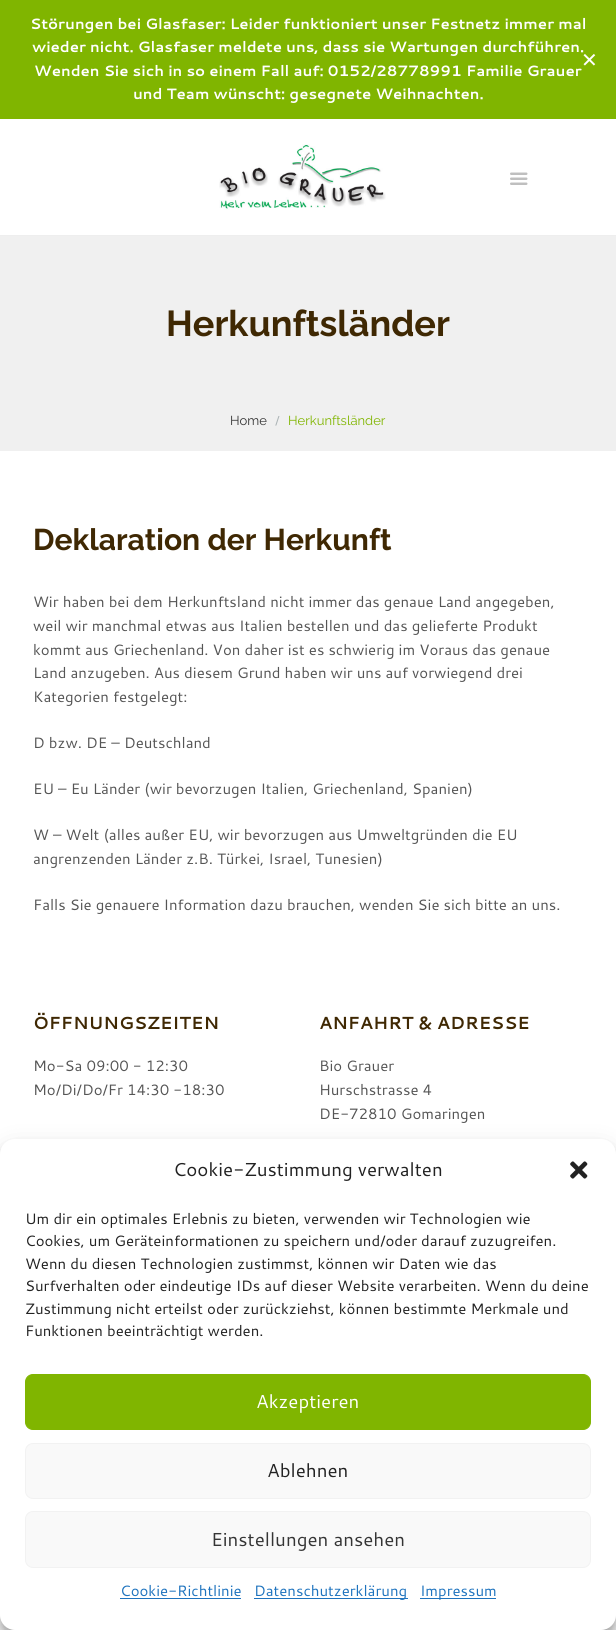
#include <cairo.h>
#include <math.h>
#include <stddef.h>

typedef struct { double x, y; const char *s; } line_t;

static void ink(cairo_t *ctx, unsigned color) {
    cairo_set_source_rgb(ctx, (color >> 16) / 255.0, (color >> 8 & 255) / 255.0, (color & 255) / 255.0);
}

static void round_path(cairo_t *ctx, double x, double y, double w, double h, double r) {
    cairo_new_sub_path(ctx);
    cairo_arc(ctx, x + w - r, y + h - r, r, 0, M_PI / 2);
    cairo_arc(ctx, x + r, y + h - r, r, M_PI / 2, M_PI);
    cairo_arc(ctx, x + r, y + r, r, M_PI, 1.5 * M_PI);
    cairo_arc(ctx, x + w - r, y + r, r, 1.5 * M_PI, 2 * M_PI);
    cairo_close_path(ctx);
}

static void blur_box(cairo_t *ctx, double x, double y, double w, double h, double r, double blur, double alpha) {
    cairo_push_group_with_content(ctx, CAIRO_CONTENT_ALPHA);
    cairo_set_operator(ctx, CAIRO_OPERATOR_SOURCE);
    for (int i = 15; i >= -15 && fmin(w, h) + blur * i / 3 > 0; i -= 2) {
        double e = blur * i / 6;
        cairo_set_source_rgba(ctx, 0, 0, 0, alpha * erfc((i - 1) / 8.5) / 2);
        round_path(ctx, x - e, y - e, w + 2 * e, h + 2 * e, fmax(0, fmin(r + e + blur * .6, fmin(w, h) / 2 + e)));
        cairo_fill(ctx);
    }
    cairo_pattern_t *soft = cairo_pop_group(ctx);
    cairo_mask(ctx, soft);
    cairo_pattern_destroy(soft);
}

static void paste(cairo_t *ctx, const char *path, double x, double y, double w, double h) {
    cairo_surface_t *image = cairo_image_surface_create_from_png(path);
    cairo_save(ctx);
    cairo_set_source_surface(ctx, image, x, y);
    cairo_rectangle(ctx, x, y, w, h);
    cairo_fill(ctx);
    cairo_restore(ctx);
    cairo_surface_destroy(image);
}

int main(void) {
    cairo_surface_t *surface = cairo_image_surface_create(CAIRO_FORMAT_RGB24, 616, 1630);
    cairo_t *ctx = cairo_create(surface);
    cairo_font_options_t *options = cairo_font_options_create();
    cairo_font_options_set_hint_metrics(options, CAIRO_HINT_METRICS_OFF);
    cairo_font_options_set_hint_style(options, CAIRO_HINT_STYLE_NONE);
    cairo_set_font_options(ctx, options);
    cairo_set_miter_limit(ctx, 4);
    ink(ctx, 0xFFFFFF);
    cairo_paint(ctx);
    ink(ctx, 0x80B500);
    cairo_rectangle(ctx, 0, 0, 616, 119);
    cairo_fill(ctx);
    cairo_select_font_face(ctx, "Cantarell", CAIRO_FONT_SLANT_NORMAL, CAIRO_FONT_WEIGHT_BOLD);
    cairo_set_font_size(ctx, 15);
    ink(ctx, 0xFFFFFF);
    {
        static const line_t items[] = {
            {30, 29, "Störungen bei Glasfaser: Leider funktioniert unser Festnetz immer mal"},
            {32, 52, "wieder nicht. Glasfaser meldete uns, dass sie Wartungen durchführen."},
            {34, 76, "Wenden Sie sich in so einem Fall auf: 0152/28778991 Familie Grauer"},
            {133, 99, "und Team wünscht: gesegnete Weihnachten."},
        };
        for (size_t i = 0; i < sizeof items / sizeof *items; i++) {
            cairo_move_to(ctx, items[i].x, items[i].y);
            cairo_show_text(ctx, items[i].s);
        }
    }
    cairo_select_font_face(ctx, "DejaVu Sans", CAIRO_FONT_SLANT_NORMAL, CAIRO_FONT_WEIGHT_NORMAL);
    cairo_set_font_size(ctx, 20);
    cairo_move_to(ctx, 581, 67);
    cairo_show_text(ctx, "✕");
    paste(ctx, "media/1.png", 219, 144, 167, 66);
    paste(ctx, "media/2.png", 510, 172, 18, 13);
    ink(ctx, 0xF0F0F0);
    cairo_rectangle(ctx, 0, 236, 616, 215);
    cairo_fill(ctx);
    ink(ctx, 0xEEEEEE);
    cairo_rectangle(ctx, 0, 235, 616, 1);
    cairo_fill(ctx);
    cairo_select_font_face(ctx, "Raleway", CAIRO_FONT_SLANT_NORMAL, CAIRO_FONT_WEIGHT_BOLD);
    cairo_set_font_size(ctx, 36);
    ink(ctx, 0x3F2803);
    cairo_move_to(ctx, 166, 336);
    cairo_show_text(ctx, "Herkunftsländer");
    cairo_select_font_face(ctx, "Raleway", CAIRO_FONT_SLANT_NORMAL, CAIRO_FONT_WEIGHT_NORMAL);
    cairo_set_font_size(ctx, 13);
    ink(ctx, 0x353535);
    cairo_move_to(ctx, 230, 425);
    cairo_show_text(ctx, "Home");
    cairo_select_font_face(ctx, "Cantarell", CAIRO_FONT_SLANT_NORMAL, CAIRO_FONT_WEIGHT_NORMAL);
    ink(ctx, 0xACB4B6);
    cairo_move_to(ctx, 275, 425);
    cairo_show_text(ctx, "/");
    cairo_select_font_face(ctx, "Raleway", CAIRO_FONT_SLANT_NORMAL, CAIRO_FONT_WEIGHT_NORMAL);
    ink(ctx, 0x80B500);
    cairo_move_to(ctx, 288, 425);
    cairo_show_text(ctx, "Herkunftsländer");
    cairo_select_font_face(ctx, "Raleway", CAIRO_FONT_SLANT_NORMAL, CAIRO_FONT_WEIGHT_BOLD);
    cairo_set_font_size(ctx, 30);
    ink(ctx, 0x3F2803);
    cairo_move_to(ctx, 33, 550);
    cairo_show_text(ctx, "Deklaration der Herkunft");
    cairo_select_font_face(ctx, "Cantarell", CAIRO_FONT_SLANT_NORMAL, CAIRO_FONT_WEIGHT_NORMAL);
    cairo_set_font_size(ctx, 15);
    ink(ctx, 0x555555);
    {
        static const line_t items[] = {
            {33, 607, "Wir haben bei dem Herkunftsland nicht immer das genaue Land angegeben,"},
            {33, 631, "weil wir manchmal etwas aus Italien bestellen und das gelieferte Produkt"},
            {33, 655, "kommt aus Griechenland. Von daher ist es schwierig im Voraus das genaue"},
            {33, 678, "Land anzugeben. Aus diesem Grund haben wir uns auf vorwiegend drei"},
            {33, 702, "Kategorien festgelegt:"},
            {33, 748, "D bzw. DE – Deutschland"},
            {33, 794, "EU – Eu Länder (wir bevorzugen Italien, Griechenland, Spanien)"},
            {33, 840, "W – Welt (alles außer EU, wir bevorzugen aus Umweltgründen die EU"},
            {33, 864, "angrenzenden Länder z.B. Türkei, Israel, Tunesien)"},
            {33, 910, "Falls Sie genauere Information dazu brauchen, wenden Sie sich bitte an uns."},
        };
        for (size_t i = 0; i < sizeof items / sizeof *items; i++) {
            cairo_move_to(ctx, items[i].x, items[i].y);
            cairo_show_text(ctx, items[i].s);
        }
    }
    cairo_select_font_face(ctx, "Cantarell", CAIRO_FONT_SLANT_NORMAL, CAIRO_FONT_WEIGHT_BOLD);
    cairo_set_font_size(ctx, 17.5);
    ink(ctx, 0x3F2803);
    cairo_move_to(ctx, 33, 1029);
    cairo_show_text(ctx, "ÖFFNUNGSZEITEN");
    cairo_select_font_face(ctx, "Cantarell", CAIRO_FONT_SLANT_NORMAL, CAIRO_FONT_WEIGHT_NORMAL);
    cairo_set_font_size(ctx, 15);
    ink(ctx, 0x555555);
    cairo_move_to(ctx, 33, 1071);
    cairo_show_text(ctx, "Mo-Sa 09:00 - 12:30");
    cairo_move_to(ctx, 33, 1095);
    cairo_show_text(ctx, "Mo/Di/Do/Fr 14:30 -18:30");
    cairo_select_font_face(ctx, "Cantarell", CAIRO_FONT_SLANT_NORMAL, CAIRO_FONT_WEIGHT_BOLD);
    cairo_set_font_size(ctx, 17.5);
    ink(ctx, 0x3F2803);
    cairo_move_to(ctx, 319, 1029);
    cairo_show_text(ctx, "ANFAHRT & ADRESSE");
    cairo_select_font_face(ctx, "Cantarell", CAIRO_FONT_SLANT_NORMAL, CAIRO_FONT_WEIGHT_NORMAL);
    cairo_set_font_size(ctx, 15);
    ink(ctx, 0x555555);
    {
        static const line_t items[] = {
            {319, 1071, "Bio Grauer"},
            {319, 1095, "Hurschstrasse 4"},
            {319, 1119, "DE-72810 Gomaringen"},
        };
        for (size_t i = 0; i < sizeof items / sizeof *items; i++) {
            cairo_move_to(ctx, items[i].x, items[i].y);
            cairo_show_text(ctx, items[i].s);
        }
    }
    ink(ctx, 0x000000);
    blur_box(ctx, 0, 1146, 616, 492, 15, 4, 0.23);
    blur_box(ctx, 0, 1151, 616, 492, 15, 12.5, 0.19);
    ink(ctx, 0xFFFFFF);
    round_path(ctx, 0, 1139, 616, 491, 15);
    cairo_fill(ctx);
    cairo_set_font_size(ctx, 18.75);
    ink(ctx, 0x222222);
    cairo_move_to(ctx, 173, 1176);
    cairo_show_text(ctx, "Cookie-Zustimmung verwalten");
    paste(ctx, "media/3.png", 570, 1161, 18, 18);
    cairo_set_font_size(ctx, 15);
    {
        static const line_t items[] = {
            {25, 1224, "Um dir ein optimales Erlebnis zu bieten, verwenden wir Technologien wie"},
            {25, 1246, "Cookies, um Geräteinformationen zu speichern und/oder darauf zuzugreifen."},
            {25, 1269, "Wenn du diesen Technologien zustimmst, können wir Daten wie das"},
            {25, 1291, "Surfverhalten oder eindeutige IDs auf dieser Website verarbeiten. Wenn du deine"},
            {25, 1314, "Zustimmung nicht erteilst oder zurückziehst, können bestimmte Merkmale und"},
            {25, 1336, "Funktionen beeinträchtigt werden."},
        };
        for (size_t i = 0; i < sizeof items / sizeof *items; i++) {
            cairo_move_to(ctx, items[i].x, items[i].y);
            cairo_show_text(ctx, items[i].s);
        }
    }
    ink(ctx, 0x80B500);
    round_path(ctx, 25.5, 1374.5, 565, 55, 7.5);
    cairo_fill_preserve(ctx);
    cairo_set_line_width(ctx, 1);
    cairo_stroke(ctx);
    cairo_set_font_size(ctx, 18.75);
    ink(ctx, 0xFFFFFF);
    cairo_move_to(ctx, 256, 1408);
    cairo_show_text(ctx, "Akzeptieren");
    ink(ctx, 0xF9F9F9);
    round_path(ctx, 25.5, 1443.5, 565, 55, 7.5);
    cairo_fill_preserve(ctx);
    ink(ctx, 0xF2F2F2);
    cairo_stroke(ctx);
    ink(ctx, 0x222222);
    cairo_move_to(ctx, 267, 1477);
    cairo_show_text(ctx, "Ablehnen");
    ink(ctx, 0xF9F9F9);
    round_path(ctx, 25.5, 1511.5, 565, 56, 7.5);
    cairo_fill_preserve(ctx);
    ink(ctx, 0xF2F2F2);
    cairo_stroke(ctx);
    ink(ctx, 0x353535);
    cairo_move_to(ctx, 211, 1546);
    cairo_show_text(ctx, "Einstellungen ansehen");
    cairo_set_font_size(ctx, 15);
    ink(ctx, 0x1E73BE);
    cairo_move_to(ctx, 120, 1596);
    cairo_show_text(ctx, "Cookie-Richtlinie");
    cairo_rectangle(ctx, 120, 1598, 121, 1);
    cairo_fill(ctx);
    cairo_rectangle(ctx, 254, 1598, 154, 1);
    cairo_fill(ctx);
    cairo_move_to(ctx, 254, 1596);
    cairo_show_text(ctx, "Datenschutzerklärung");
    cairo_rectangle(ctx, 420, 1598, 76, 1);
    cairo_fill(ctx);
    cairo_move_to(ctx, 420, 1596);
    cairo_show_text(ctx, "Impressum");
    cairo_surface_write_to_png(surface, "image.png");
    cairo_font_options_destroy(options);
    cairo_destroy(ctx);
    cairo_surface_destroy(surface);
    return 0;
}
